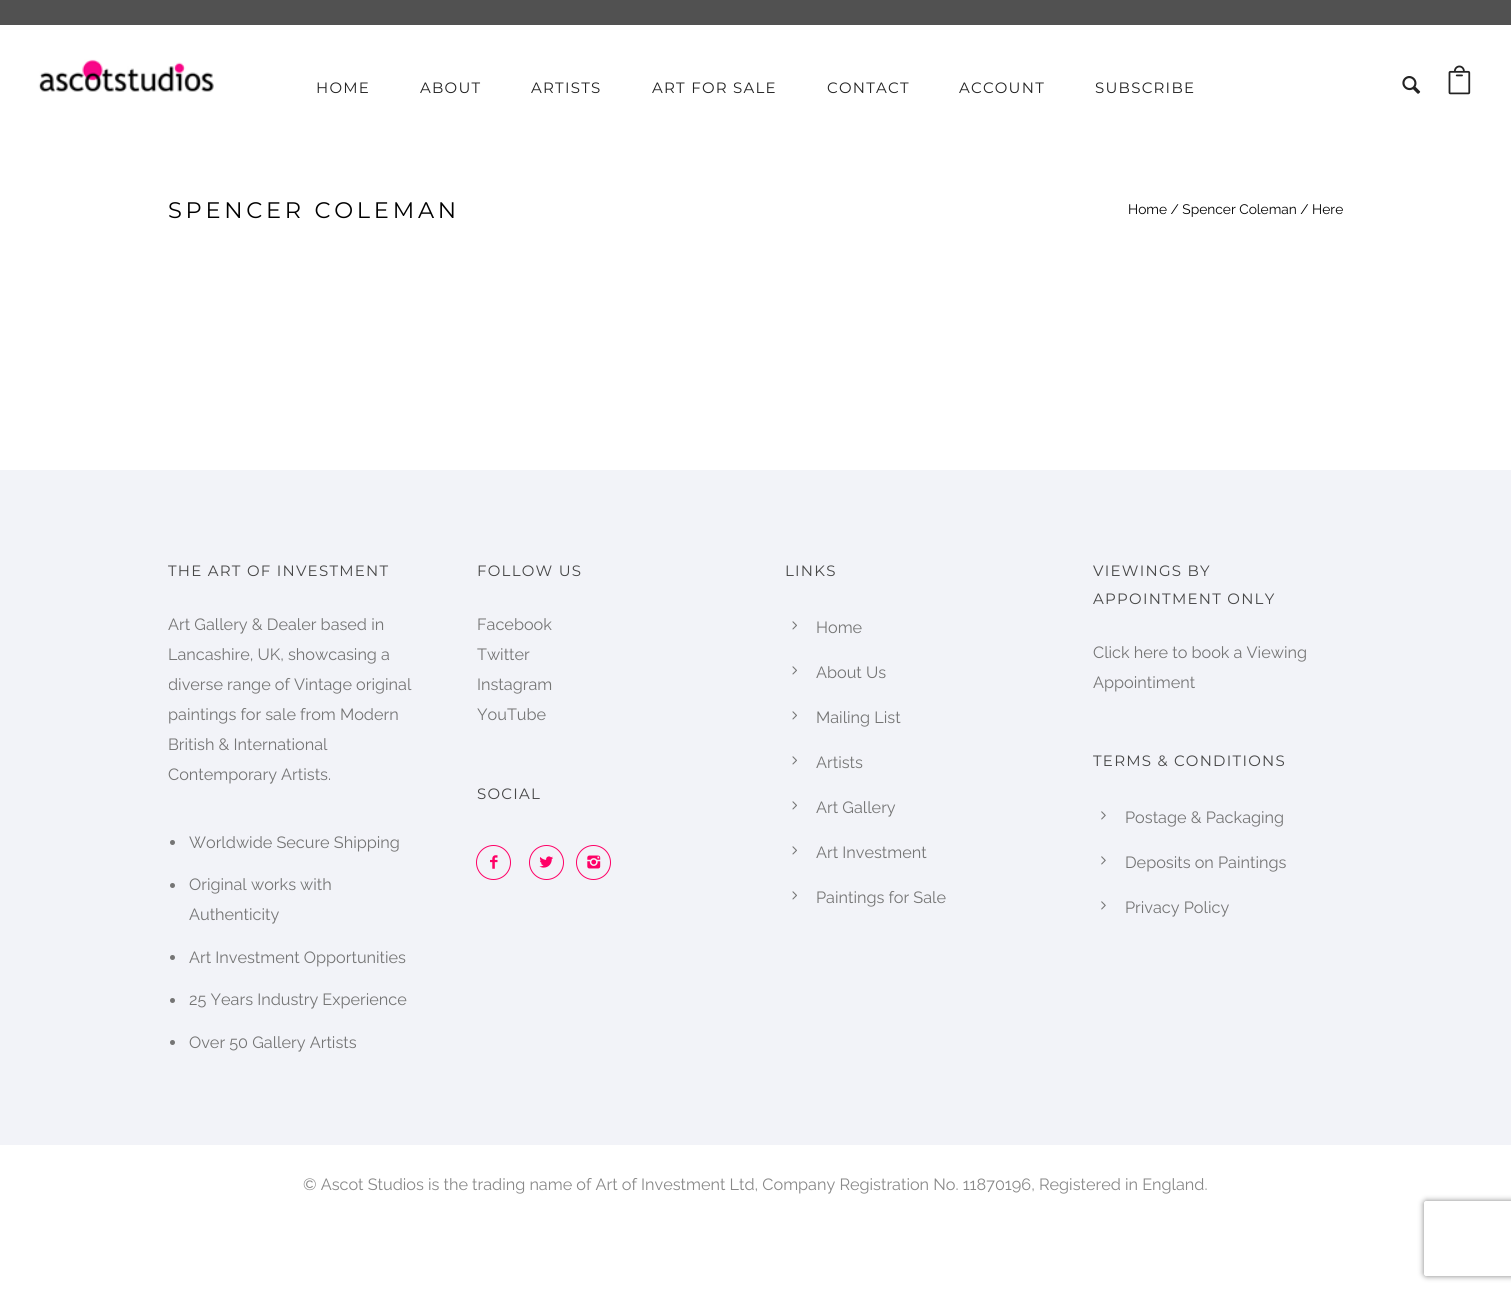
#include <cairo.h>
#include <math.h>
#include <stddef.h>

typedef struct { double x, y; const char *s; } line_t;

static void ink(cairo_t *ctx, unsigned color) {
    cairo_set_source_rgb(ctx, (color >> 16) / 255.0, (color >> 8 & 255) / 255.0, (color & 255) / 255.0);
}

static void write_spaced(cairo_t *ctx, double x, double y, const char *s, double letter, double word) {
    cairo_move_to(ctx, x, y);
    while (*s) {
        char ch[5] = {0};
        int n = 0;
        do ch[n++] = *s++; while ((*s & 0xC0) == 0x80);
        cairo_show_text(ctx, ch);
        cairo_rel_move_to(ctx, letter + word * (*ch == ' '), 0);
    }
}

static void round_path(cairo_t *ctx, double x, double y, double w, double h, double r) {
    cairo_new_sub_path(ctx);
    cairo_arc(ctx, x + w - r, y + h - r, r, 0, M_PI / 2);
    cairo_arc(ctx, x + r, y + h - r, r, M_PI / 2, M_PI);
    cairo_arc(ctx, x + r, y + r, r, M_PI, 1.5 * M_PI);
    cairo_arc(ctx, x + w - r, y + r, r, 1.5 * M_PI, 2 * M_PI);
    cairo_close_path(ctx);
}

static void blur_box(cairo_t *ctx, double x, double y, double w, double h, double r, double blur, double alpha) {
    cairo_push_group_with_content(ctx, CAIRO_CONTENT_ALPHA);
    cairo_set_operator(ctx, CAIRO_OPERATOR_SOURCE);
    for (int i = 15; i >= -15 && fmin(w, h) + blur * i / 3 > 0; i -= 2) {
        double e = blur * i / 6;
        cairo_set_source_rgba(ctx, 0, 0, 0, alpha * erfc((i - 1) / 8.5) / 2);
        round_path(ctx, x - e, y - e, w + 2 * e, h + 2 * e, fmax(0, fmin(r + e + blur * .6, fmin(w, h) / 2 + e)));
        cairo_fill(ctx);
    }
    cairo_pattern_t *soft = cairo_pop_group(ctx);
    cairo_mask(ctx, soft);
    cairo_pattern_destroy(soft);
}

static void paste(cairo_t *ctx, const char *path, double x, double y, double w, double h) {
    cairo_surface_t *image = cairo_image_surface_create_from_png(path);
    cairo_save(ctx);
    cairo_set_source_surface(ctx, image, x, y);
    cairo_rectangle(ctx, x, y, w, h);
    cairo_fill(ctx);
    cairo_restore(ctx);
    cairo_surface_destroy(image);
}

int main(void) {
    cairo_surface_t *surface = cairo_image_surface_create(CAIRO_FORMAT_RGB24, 1511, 1293);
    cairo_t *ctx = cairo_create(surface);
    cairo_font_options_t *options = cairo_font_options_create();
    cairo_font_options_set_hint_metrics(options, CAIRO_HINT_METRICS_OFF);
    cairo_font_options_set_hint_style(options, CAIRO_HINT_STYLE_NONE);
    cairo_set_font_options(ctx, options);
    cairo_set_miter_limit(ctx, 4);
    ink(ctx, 0xFFFFFF);
    cairo_paint(ctx);
    ink(ctx, 0x515151);
    cairo_rectangle(ctx, 0, 0, 1511, 25);
    cairo_fill(ctx);
    paste(ctx, "media/1.png", 38, 59, 176, 33);
    cairo_select_font_face(ctx, "Montserrat", CAIRO_FONT_SLANT_NORMAL, CAIRO_FONT_WEIGHT_NORMAL);
    cairo_set_font_size(ctx, 15);
    ink(ctx, 0x232323);
    {
        static const line_t items[] = {
            {316, 93, "HOME"},
            {420, 93, "ABOUT"},
            {531, 93, "ARTISTS"},
            {652, 93, "ART FOR SALE"},
            {827, 93, "CONTACT"},
            {959, 93, "ACCOUNT"},
            {1095, 93, "SUBSCRIBE"},
        };
        for (size_t i = 0; i < sizeof items / sizeof *items; i++) {
            write_spaced(ctx, items[i].x, items[i].y, items[i].s, 1.25, 0);
        }
    }
    paste(ctx, "media/2.png", 1402, 76, 19, 18);
    paste(ctx, "media/3.png", 1448, 65, 23, 30);
    cairo_set_font_size(ctx, 22.5);
    ink(ctx, 0x000000);
    write_spaced(ctx, 168, 218, "SPENCER COLEMAN", 3.75, 0);
    cairo_select_font_face(ctx, "Raleway", CAIRO_FONT_SLANT_NORMAL, CAIRO_FONT_WEIGHT_NORMAL);
    cairo_set_font_size(ctx, 13.75);
    cairo_move_to(ctx, 1128, 214);
    cairo_show_text(ctx, "Home / Spencer Coleman / Here");
    ink(ctx, 0xF2F3F8);
    cairo_rectangle(ctx, 0, 470, 1511, 675);
    cairo_fill(ctx);
    cairo_select_font_face(ctx, "Montserrat", CAIRO_FONT_SLANT_NORMAL, CAIRO_FONT_WEIGHT_NORMAL);
    cairo_set_font_size(ctx, 15);
    ink(ctx, 0x474747);
    write_spaced(ctx, 168, 576, "THE ART OF INVESTMENT", 1.25, 0);
    cairo_select_font_face(ctx, "Raleway", CAIRO_FONT_SLANT_NORMAL, CAIRO_FONT_WEIGHT_NORMAL);
    cairo_set_font_size(ctx, 16.25);
    ink(ctx, 0x757575);
    cairo_move_to(ctx, 168, 630);
    cairo_show_text(ctx, "Art Gallery & Dealer based in");
    cairo_move_to(ctx, 168, 660);
    cairo_show_text(ctx, "Lancashire, UK, showcasing a");
    cairo_save(ctx);
    cairo_rectangle(ctx, 169, 558, 249, 500);
    cairo_clip(ctx);
    cairo_move_to(ctx, 168, 690);
    cairo_show_text(ctx, "diverse range of Vintage original");
    cairo_restore(ctx);
    {
        static const line_t items[] = {
            {168, 720, "paintings for sale from Modern"},
            {168, 750, "British & International"},
            {168, 780, "Contemporary Artists."},
        };
        for (size_t i = 0; i < sizeof items / sizeof *items; i++) {
            cairo_move_to(ctx, items[i].x, items[i].y);
            cairo_show_text(ctx, items[i].s);
        }
    }
    cairo_new_path(ctx);
    cairo_arc(ctx, 172.5, 842.5, 2.5, 0, 2 * M_PI);
    cairo_fill(ctx);
    cairo_move_to(ctx, 189, 848);
    cairo_show_text(ctx, "Worldwide Secure Shipping");
    cairo_new_path(ctx);
    cairo_arc(ctx, 172.5, 885.5, 2.5, 0, 2 * M_PI);
    cairo_fill(ctx);
    cairo_move_to(ctx, 189, 890);
    cairo_show_text(ctx, "Original works with");
    cairo_move_to(ctx, 189, 920);
    cairo_show_text(ctx, "Authenticity");
    cairo_new_path(ctx);
    cairo_arc(ctx, 172.5, 957.5, 2.5, 0, 2 * M_PI);
    cairo_fill(ctx);
    cairo_move_to(ctx, 189, 963);
    cairo_show_text(ctx, "Art Investment Opportunities");
    cairo_new_path(ctx);
    cairo_arc(ctx, 172.5, 1000.5, 2.5, 0, 2 * M_PI);
    cairo_fill(ctx);
    cairo_move_to(ctx, 189, 1005);
    cairo_show_text(ctx, "25 Years Industry Experience");
    cairo_new_path(ctx);
    cairo_arc(ctx, 172.5, 1042.5, 2.5, 0, 2 * M_PI);
    cairo_fill(ctx);
    cairo_move_to(ctx, 189, 1048);
    cairo_show_text(ctx, "Over 50 Gallery Artists");
    cairo_select_font_face(ctx, "Montserrat", CAIRO_FONT_SLANT_NORMAL, CAIRO_FONT_WEIGHT_NORMAL);
    cairo_set_font_size(ctx, 15);
    ink(ctx, 0x474747);
    write_spaced(ctx, 477, 576, "FOLLOW US", 1.25, 0);
    cairo_select_font_face(ctx, "Raleway", CAIRO_FONT_SLANT_NORMAL, CAIRO_FONT_WEIGHT_NORMAL);
    cairo_set_font_size(ctx, 16.25);
    ink(ctx, 0x757575);
    {
        static const line_t items[] = {
            {477, 630, "Facebook"},
            {477, 660, "Twitter"},
            {477, 690, "Instagram"},
            {477, 720, "YouTube"},
        };
        for (size_t i = 0; i < sizeof items / sizeof *items; i++) {
            cairo_move_to(ctx, items[i].x, items[i].y);
            cairo_show_text(ctx, items[i].s);
        }
    }
    cairo_select_font_face(ctx, "Montserrat", CAIRO_FONT_SLANT_NORMAL, CAIRO_FONT_WEIGHT_NORMAL);
    cairo_set_font_size(ctx, 15);
    ink(ctx, 0x474747);
    write_spaced(ctx, 477, 799, "SOCIAL", 1.25, 0);
    cairo_new_path(ctx);
    cairo_arc(ctx, 493.5, 862.5, 17, 0, 2 * M_PI);
    ink(ctx, 0xFF0066);
    cairo_set_line_width(ctx, 1);
    cairo_stroke(ctx);
    paste(ctx, "media/4.png", 490, 855, 8, 14);
    cairo_arc(ctx, 546.5, 862.5, 17, 0, 2 * M_PI);
    cairo_stroke(ctx);
    paste(ctx, "media/5.png", 539, 856, 14, 12);
    cairo_arc(ctx, 593.5, 862.5, 17, 0, 2 * M_PI);
    cairo_stroke(ctx);
    paste(ctx, "media/6.png", 587, 855, 14, 14);
    ink(ctx, 0x474747);
    write_spaced(ctx, 785, 576, "LINKS", 1.25, 0);
    paste(ctx, "media/7.png", 792, 621, 5, 9);
    cairo_select_font_face(ctx, "Raleway", CAIRO_FONT_SLANT_NORMAL, CAIRO_FONT_WEIGHT_NORMAL);
    cairo_set_font_size(ctx, 16.25);
    ink(ctx, 0x757575);
    cairo_move_to(ctx, 816, 633);
    cairo_show_text(ctx, "Home");
    paste(ctx, "media/7.png", 792, 666, 5, 9);
    cairo_move_to(ctx, 816, 678);
    cairo_show_text(ctx, "About Us");
    paste(ctx, "media/7.png", 792, 711, 5, 9);
    cairo_move_to(ctx, 816, 723);
    cairo_show_text(ctx, "Mailing List");
    paste(ctx, "media/7.png", 792, 756, 5, 9);
    cairo_move_to(ctx, 816, 768);
    cairo_show_text(ctx, "Artists");
    paste(ctx, "media/7.png", 792, 801, 5, 9);
    cairo_move_to(ctx, 816, 813);
    cairo_show_text(ctx, "Art Gallery");
    paste(ctx, "media/7.png", 792, 846, 5, 9);
    cairo_move_to(ctx, 816, 858);
    cairo_show_text(ctx, "Art Investment");
    paste(ctx, "media/7.png", 792, 891, 5, 9);
    cairo_move_to(ctx, 816, 903);
    cairo_show_text(ctx, "Paintings for Sale");
    cairo_select_font_face(ctx, "Montserrat", CAIRO_FONT_SLANT_NORMAL, CAIRO_FONT_WEIGHT_NORMAL);
    cairo_set_font_size(ctx, 15);
    ink(ctx, 0x474747);
    write_spaced(ctx, 1093, 576, "VIEWINGS BY", 1.25, 0);
    write_spaced(ctx, 1093, 604, "APPOINTMENT ONLY", 1.25, 0);
    cairo_select_font_face(ctx, "Raleway", CAIRO_FONT_SLANT_NORMAL, CAIRO_FONT_WEIGHT_NORMAL);
    cairo_set_font_size(ctx, 16.25);
    ink(ctx, 0x757575);
    cairo_move_to(ctx, 1093, 658);
    cairo_show_text(ctx, "Click here to book a Viewing");
    cairo_move_to(ctx, 1093, 688);
    cairo_show_text(ctx, "Appointiment");
    cairo_select_font_face(ctx, "Montserrat", CAIRO_FONT_SLANT_NORMAL, CAIRO_FONT_WEIGHT_NORMAL);
    cairo_set_font_size(ctx, 15);
    ink(ctx, 0x474747);
    write_spaced(ctx, 1093, 766, "TERMS & CONDITIONS", 1.25, 0);
    paste(ctx, "media/8.png", 1101, 811, 5, 9);
    cairo_select_font_face(ctx, "Raleway", CAIRO_FONT_SLANT_NORMAL, CAIRO_FONT_WEIGHT_NORMAL);
    cairo_set_font_size(ctx, 16.25);
    ink(ctx, 0x757575);
    cairo_move_to(ctx, 1125, 823);
    cairo_show_text(ctx, "Postage & Packaging");
    paste(ctx, "media/8.png", 1101, 856, 5, 9);
    cairo_move_to(ctx, 1125, 868);
    cairo_show_text(ctx, "Deposits on Paintings");
    paste(ctx, "media/8.png", 1101, 901, 5, 9);
    cairo_move_to(ctx, 1125, 913);
    cairo_show_text(ctx, "Privacy Policy");
    ink(ctx, 0x888888);
    cairo_move_to(ctx, 303, 1190);
    cairo_show_text(ctx, "© Ascot Studios is the trading name of Art of Investment Ltd, Company Registration No. 11870196, Registered in England.");
    cairo_save(ctx);
    cairo_set_fill_rule(ctx, CAIRO_FILL_RULE_EVEN_ODD);
    cairo_new_path(ctx);
    cairo_move_to(ctx, 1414, 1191);
    cairo_line_to(ctx, 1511, 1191);
    cairo_line_to(ctx, 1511, 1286);
    cairo_line_to(ctx, 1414, 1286);
    cairo_close_path(ctx);
    cairo_move_to(ctx, 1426.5, 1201);
    cairo_line_to(ctx, 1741.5, 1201);
    cairo_curve_to(ctx, 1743, 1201, 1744, 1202, 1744, 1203.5);
    cairo_line_to(ctx, 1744, 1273.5);
    cairo_curve_to(ctx, 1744, 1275, 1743, 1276, 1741.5, 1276);
    cairo_line_to(ctx, 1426.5, 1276);
    cairo_curve_to(ctx, 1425, 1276, 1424, 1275, 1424, 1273.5);
    cairo_line_to(ctx, 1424, 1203.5);
    cairo_curve_to(ctx, 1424, 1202, 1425, 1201, 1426.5, 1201);
    cairo_close_path(ctx);
    cairo_clip(ctx);
    ink(ctx, 0x808080);
    blur_box(ctx, 1424, 1201, 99, 75, 2.5, 3, 1);
    cairo_restore(ctx);
    cairo_surface_write_to_png(surface, "image.png");
    cairo_font_options_destroy(options);
    cairo_destroy(ctx);
    cairo_surface_destroy(surface);
    return 0;
}
